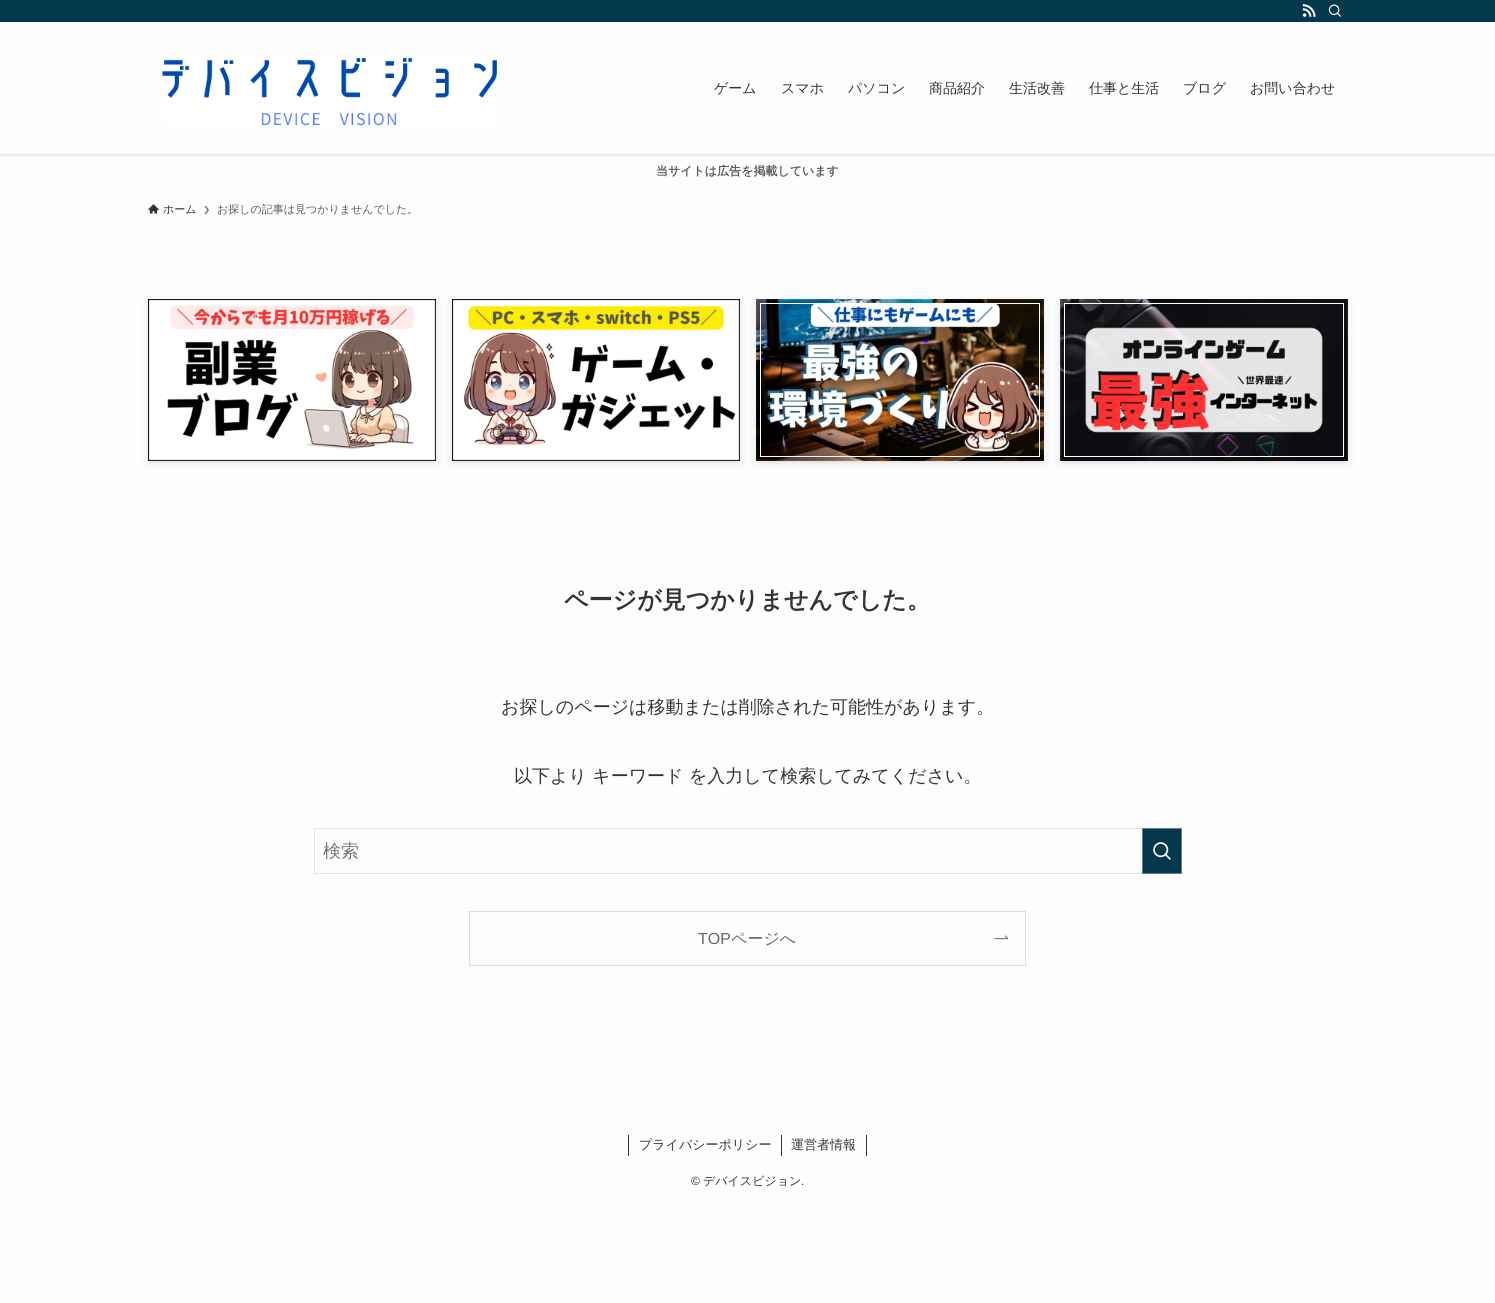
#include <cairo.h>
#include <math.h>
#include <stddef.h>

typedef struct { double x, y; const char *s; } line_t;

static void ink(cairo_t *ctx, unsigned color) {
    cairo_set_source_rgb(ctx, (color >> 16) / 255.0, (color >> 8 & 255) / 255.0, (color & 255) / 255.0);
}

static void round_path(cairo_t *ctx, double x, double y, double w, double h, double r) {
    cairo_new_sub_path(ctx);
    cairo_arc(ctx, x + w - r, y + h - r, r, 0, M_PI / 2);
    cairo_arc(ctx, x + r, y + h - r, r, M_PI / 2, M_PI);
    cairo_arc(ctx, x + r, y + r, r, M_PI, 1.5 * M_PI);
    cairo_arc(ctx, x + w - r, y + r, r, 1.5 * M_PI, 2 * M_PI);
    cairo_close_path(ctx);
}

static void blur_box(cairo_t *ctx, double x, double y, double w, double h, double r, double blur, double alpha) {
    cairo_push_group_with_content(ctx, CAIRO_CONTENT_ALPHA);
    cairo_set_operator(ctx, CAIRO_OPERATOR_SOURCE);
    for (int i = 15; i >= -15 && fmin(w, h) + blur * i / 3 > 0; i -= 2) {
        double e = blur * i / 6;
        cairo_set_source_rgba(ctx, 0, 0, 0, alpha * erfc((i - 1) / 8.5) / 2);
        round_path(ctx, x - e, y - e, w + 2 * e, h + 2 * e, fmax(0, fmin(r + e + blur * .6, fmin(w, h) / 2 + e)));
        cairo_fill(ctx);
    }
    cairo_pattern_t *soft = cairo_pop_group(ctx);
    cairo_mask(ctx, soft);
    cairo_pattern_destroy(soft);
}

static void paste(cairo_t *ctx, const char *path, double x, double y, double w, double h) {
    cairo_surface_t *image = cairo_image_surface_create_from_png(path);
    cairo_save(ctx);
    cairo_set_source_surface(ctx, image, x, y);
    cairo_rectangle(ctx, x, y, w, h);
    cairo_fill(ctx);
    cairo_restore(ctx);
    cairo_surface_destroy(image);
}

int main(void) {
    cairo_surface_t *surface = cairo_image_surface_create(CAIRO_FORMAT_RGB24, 1495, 1303);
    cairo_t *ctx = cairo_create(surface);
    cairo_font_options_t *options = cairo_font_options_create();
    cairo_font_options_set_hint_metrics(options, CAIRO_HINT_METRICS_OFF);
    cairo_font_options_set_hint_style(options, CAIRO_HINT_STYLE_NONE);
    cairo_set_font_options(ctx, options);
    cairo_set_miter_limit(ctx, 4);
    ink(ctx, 0xFDFDFD);
    cairo_paint(ctx);
    cairo_save(ctx);
    cairo_rectangle(ctx, 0, 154, 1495, 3);
    cairo_clip(ctx);
    ink(ctx, 0x000000);
    blur_box(ctx, 0, 1, 1495, 154, 0, 2, 0.12);
    cairo_restore(ctx);
    ink(ctx, 0x04384C);
    cairo_rectangle(ctx, 0, 0, 1495, 22);
    cairo_fill(ctx);
    paste(ctx, "media/1.png", 1302, 4, 14, 13);
    paste(ctx, "media/2.png", 1328, 4, 14, 13);
    paste(ctx, "media/3.png", 162, 57, 335, 69);
    cairo_select_font_face(ctx, "WenQuanYi Zen Hei Medium", CAIRO_FONT_SLANT_NORMAL, CAIRO_FONT_WEIGHT_NORMAL);
    cairo_set_font_size(ctx, 14);
    ink(ctx, 0x333333);
    {
        static const line_t items[] = {
            {714, 93, "ゲーム"},
            {781, 93, "スマホ"},
            {848, 93, "パソコン"},
            {929, 93, "商品紹介"},
            {1009, 93, "生活改善"},
            {1089, 93, "仕事と生活"},
            {1183, 93, "ブログ"},
            {1250, 93, "お問い合わせ"},
        };
        for (size_t i = 0; i < sizeof items / sizeof *items; i++) {
            cairo_move_to(ctx, items[i].x, items[i].y);
            cairo_show_text(ctx, items[i].s);
        }
    }
    cairo_select_font_face(ctx, "WenQuanYi Zen Hei", CAIRO_FONT_SLANT_NORMAL, CAIRO_FONT_WEIGHT_BOLD);
    cairo_set_font_size(ctx, 12);
    ink(ctx, 0x5B5B5B);
    cairo_move_to(ctx, 656, 175);
    cairo_show_text(ctx, "当サイトは広告を掲載しています");
    paste(ctx, "media/4.png", 148, 204, 11, 10);
    cairo_select_font_face(ctx, "WenQuanYi Zen Hei Medium", CAIRO_FONT_SLANT_NORMAL, CAIRO_FONT_WEIGHT_NORMAL);
    cairo_set_font_size(ctx, 11);
    ink(ctx, 0x333333);
    cairo_move_to(ctx, 163, 213);
    cairo_show_text(ctx, "ホーム");
    ink(ctx, 0x5B5B5B);
    cairo_new_path(ctx);
    cairo_move_to(ctx, 206, 206);
    cairo_line_to(ctx, 204.5, 206);
    cairo_line_to(ctx, 207.5, 210);
    cairo_line_to(ctx, 204.5, 214);
    cairo_line_to(ctx, 206, 214);
    cairo_line_to(ctx, 209, 210);
    cairo_close_path(ctx);
    cairo_fill(ctx);
    cairo_move_to(ctx, 217, 213);
    cairo_show_text(ctx, "お探しの記事は見つかりませんでした。");
    ink(ctx, 0x000000);
    blur_box(ctx, 152, 307, 280, 154, 0, 2, 0.1);
    blur_box(ctx, 148, 301, 288, 162, 0, 4, 0.1);
    paste(ctx, "media/5.png", 148, 299, 288, 162);
    blur_box(ctx, 456, 307, 280, 154, 0, 2, 0.1);
    blur_box(ctx, 452, 301, 288, 162, 0, 4, 0.1);
    paste(ctx, "media/6.png", 452, 299, 288, 162);
    cairo_rectangle(ctx, 456.5, 303.5, 279, 153);
    ink(ctx, 0xFFFFFF);
    cairo_set_line_width(ctx, 1);
    cairo_stroke(ctx);
    ink(ctx, 0x000000);
    blur_box(ctx, 760, 307, 280, 154, 0, 2, 0.1);
    blur_box(ctx, 756, 301, 288, 162, 0, 4, 0.1);
    paste(ctx, "media/7.png", 756, 299, 288, 162);
    cairo_rectangle(ctx, 760.5, 303.5, 279, 153);
    ink(ctx, 0xFFFFFF);
    cairo_stroke(ctx);
    ink(ctx, 0x000000);
    blur_box(ctx, 1064, 307, 280, 154, 0, 2, 0.1);
    blur_box(ctx, 1060, 301, 288, 162, 0, 4, 0.1);
    paste(ctx, "media/8.png", 1060, 299, 288, 162);
    cairo_rectangle(ctx, 1064.5, 303.5, 279, 153);
    ink(ctx, 0xFFFFFF);
    cairo_stroke(ctx);
    cairo_select_font_face(ctx, "WenQuanYi Zen Hei", CAIRO_FONT_SLANT_NORMAL, CAIRO_FONT_WEIGHT_BOLD);
    cairo_set_font_size(ctx, 24);
    ink(ctx, 0x333333);
    cairo_move_to(ctx, 564, 608);
    cairo_show_text(ctx, "ページが見つかりませんでした。");
    cairo_select_font_face(ctx, "WenQuanYi Zen Hei Medium", CAIRO_FONT_SLANT_NORMAL, CAIRO_FONT_WEIGHT_NORMAL);
    cairo_set_font_size(ctx, 18);
    cairo_move_to(ctx, 501, 713);
    cairo_show_text(ctx, "お探しのページは移動または削除された可能性があります。");
    cairo_move_to(ctx, 514, 782);
    cairo_show_text(ctx, "以下より キーワード を入力して検索してみてください。");
    cairo_rectangle(ctx, 314.5, 828.5, 867, 45);
    ink(ctx, 0xE3E3E3);
    cairo_stroke(ctx);
    ink(ctx, 0x757575);
    cairo_move_to(ctx, 323, 857);
    cairo_show_text(ctx, "検索");
    ink(ctx, 0x04384C);
    cairo_rectangle(ctx, 1142.5, 828.5, 39, 45);
    cairo_fill_preserve(ctx);
    ink(ctx, 0x66808A);
    cairo_stroke(ctx);
    paste(ctx, "media/9.png", 1153, 842, 18, 18);
    cairo_rectangle(ctx, 469.5, 911.5, 556, 54);
    ink(ctx, 0xDCDCDC);
    cairo_stroke(ctx);
    cairo_select_font_face(ctx, "Liberation Sans", CAIRO_FONT_SLANT_NORMAL, CAIRO_FONT_WEIGHT_NORMAL);
    cairo_set_font_size(ctx, 16);
    ink(ctx, 0x666666);
    cairo_move_to(ctx, 698, 944);
    cairo_show_text(ctx, "TOP");
    cairo_select_font_face(ctx, "WenQuanYi Zen Hei Medium", CAIRO_FONT_SLANT_NORMAL, CAIRO_FONT_WEIGHT_NORMAL);
    cairo_move_to(ctx, 731, 944);
    cairo_show_text(ctx, "ページへ");
    paste(ctx, "media/10.png", 994, 935, 15, 5);
    ink(ctx, 0x333333);
    cairo_rectangle(ctx, 781, 1135, 1, 21);
    cairo_fill(ctx);
    cairo_rectangle(ctx, 628, 1135, 1, 21);
    cairo_fill(ctx);
    cairo_set_font_size(ctx, 13);
    cairo_move_to(ctx, 639, 1149);
    cairo_show_text(ctx, "プライバシーポリシー");
    cairo_rectangle(ctx, 866, 1135, 1, 21);
    cairo_fill(ctx);
    cairo_move_to(ctx, 791, 1149);
    cairo_show_text(ctx, "運営者情報");
    cairo_select_font_face(ctx, "Liberation Sans", CAIRO_FONT_SLANT_NORMAL, CAIRO_FONT_WEIGHT_NORMAL);
    cairo_set_font_size(ctx, 12);
    cairo_move_to(ctx, 691, 1185);
    cairo_show_text(ctx, "©");
    cairo_select_font_face(ctx, "WenQuanYi Zen Hei Medium", CAIRO_FONT_SLANT_NORMAL, CAIRO_FONT_WEIGHT_NORMAL);
    cairo_move_to(ctx, 703, 1185);
    cairo_show_text(ctx, "デバイスビジョン");
    cairo_select_font_face(ctx, "Liberation Sans", CAIRO_FONT_SLANT_NORMAL, CAIRO_FONT_WEIGHT_NORMAL);
    cairo_move_to(ctx, 801, 1185);
    cairo_show_text(ctx, ".");
    cairo_surface_write_to_png(surface, "image.png");
    cairo_font_options_destroy(options);
    cairo_destroy(ctx);
    cairo_surface_destroy(surface);
    return 0;
}
